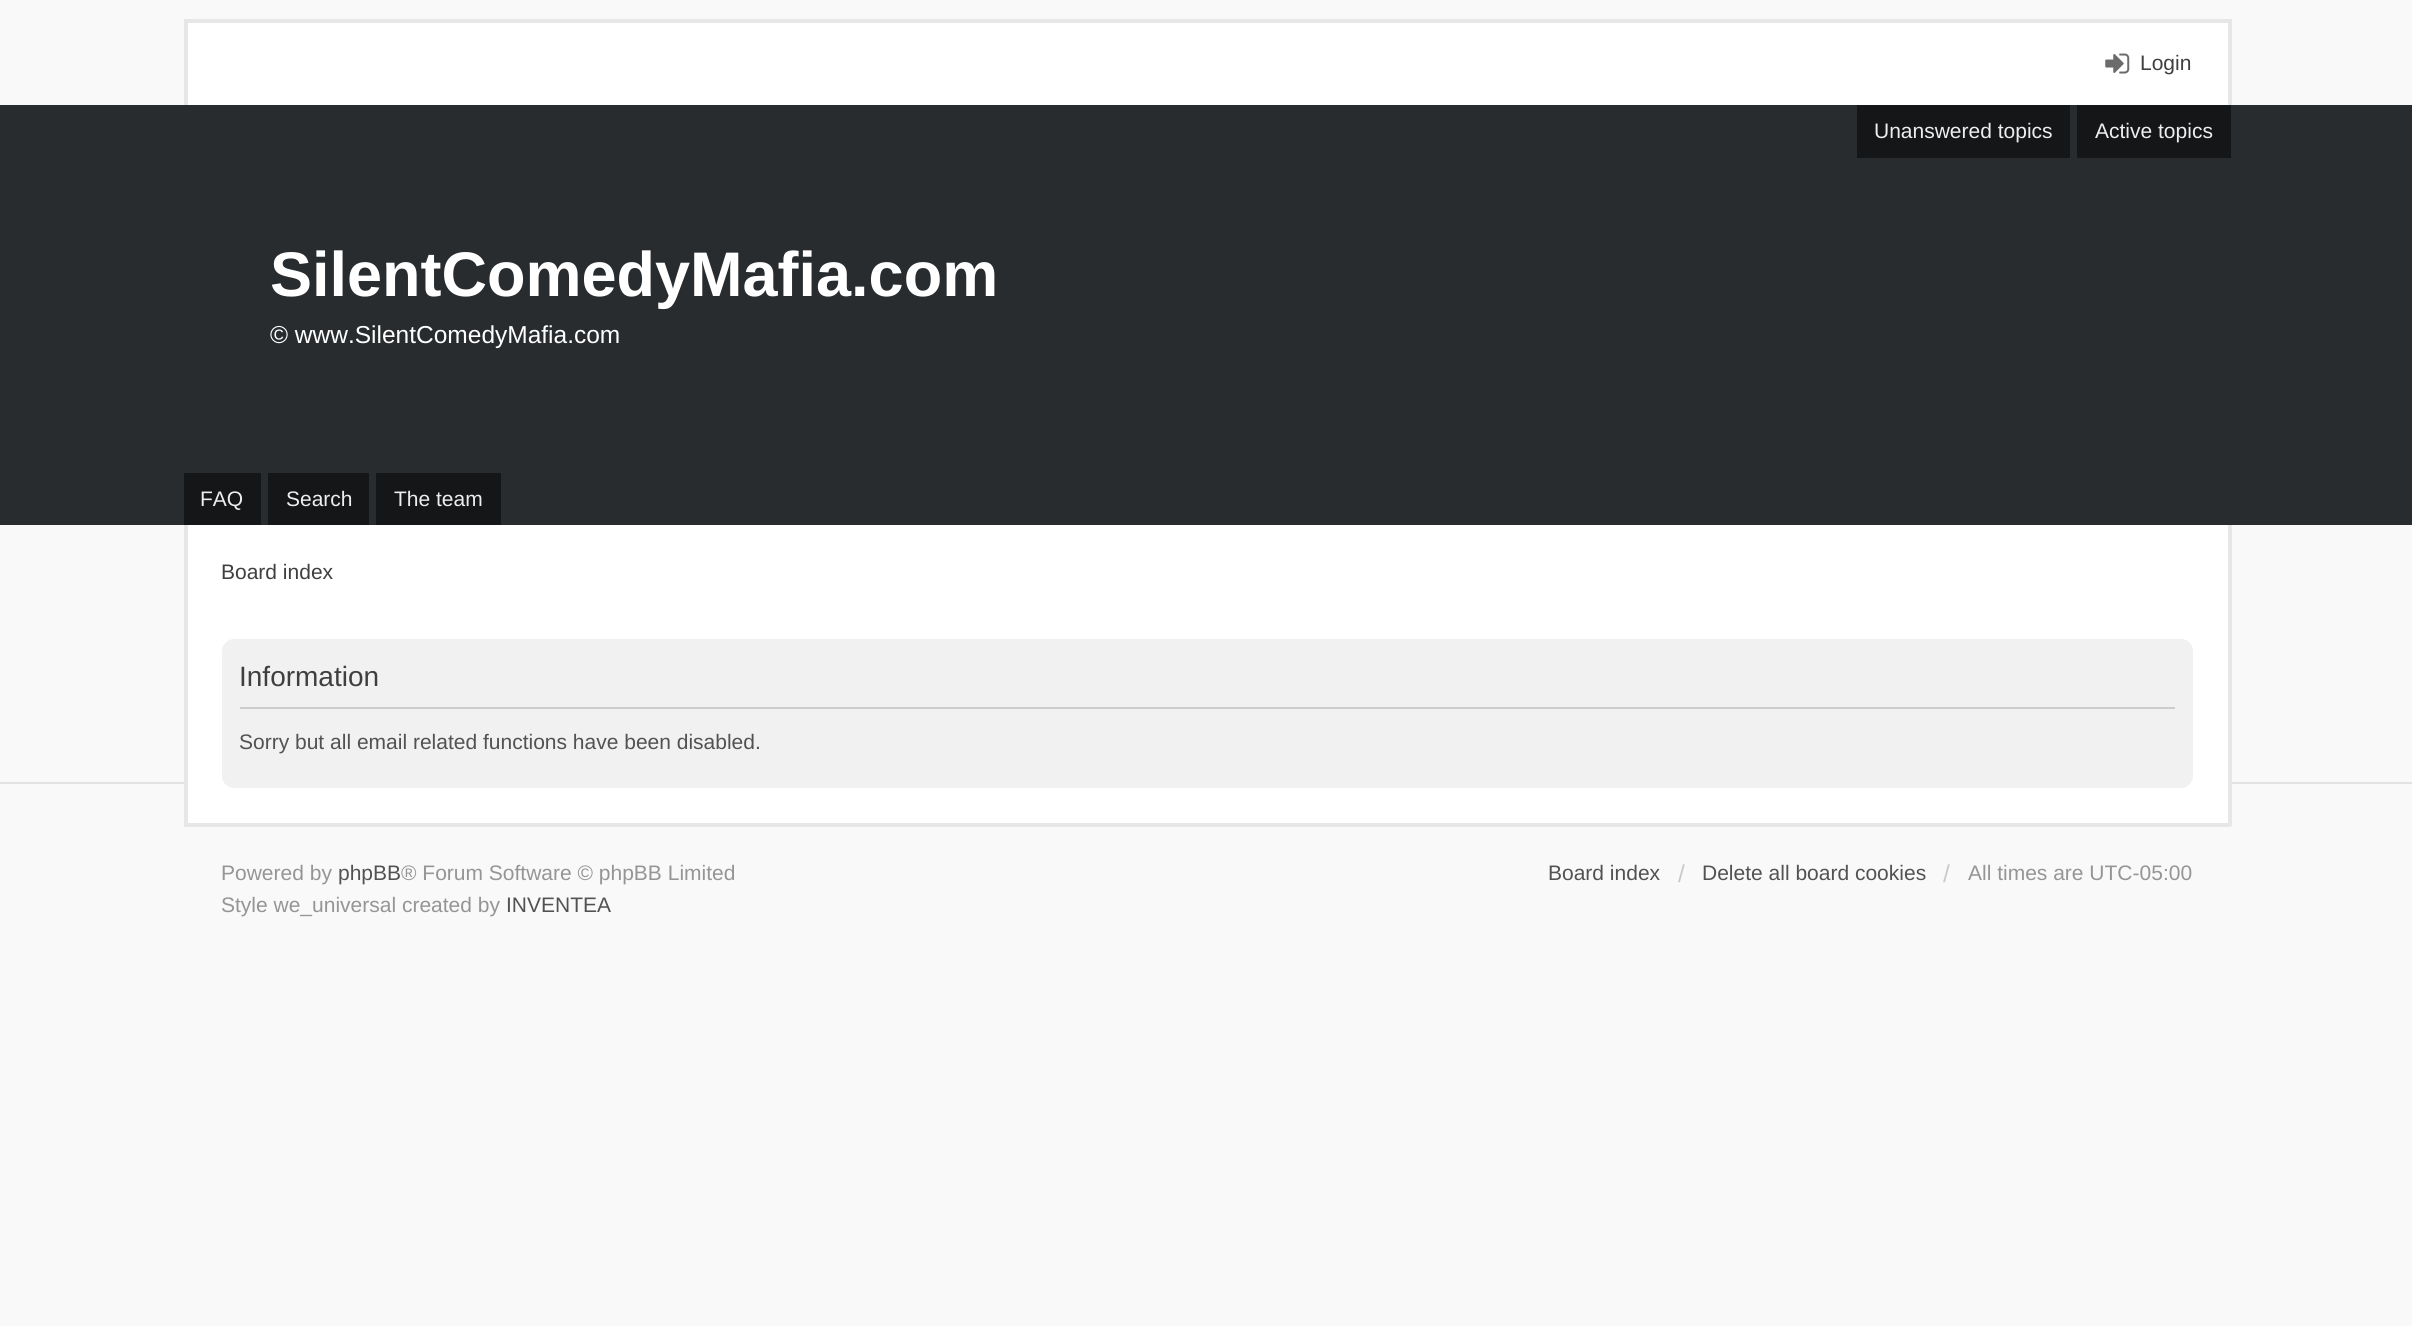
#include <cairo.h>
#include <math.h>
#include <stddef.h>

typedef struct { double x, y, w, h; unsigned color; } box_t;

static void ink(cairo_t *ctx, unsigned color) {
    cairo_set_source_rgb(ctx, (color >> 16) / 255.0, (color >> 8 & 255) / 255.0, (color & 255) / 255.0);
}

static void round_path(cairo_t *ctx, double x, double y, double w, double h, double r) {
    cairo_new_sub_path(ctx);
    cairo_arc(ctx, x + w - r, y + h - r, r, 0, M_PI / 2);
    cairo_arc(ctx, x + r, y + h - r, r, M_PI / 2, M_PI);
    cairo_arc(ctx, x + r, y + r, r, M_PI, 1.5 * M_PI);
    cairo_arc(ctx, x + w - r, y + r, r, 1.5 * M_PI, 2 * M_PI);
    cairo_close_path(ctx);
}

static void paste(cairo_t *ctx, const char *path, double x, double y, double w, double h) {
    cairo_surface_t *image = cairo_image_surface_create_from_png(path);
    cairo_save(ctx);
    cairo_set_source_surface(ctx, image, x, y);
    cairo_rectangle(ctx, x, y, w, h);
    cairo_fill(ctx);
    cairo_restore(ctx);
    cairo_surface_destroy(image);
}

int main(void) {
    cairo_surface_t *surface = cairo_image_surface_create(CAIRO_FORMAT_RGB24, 2412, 1326);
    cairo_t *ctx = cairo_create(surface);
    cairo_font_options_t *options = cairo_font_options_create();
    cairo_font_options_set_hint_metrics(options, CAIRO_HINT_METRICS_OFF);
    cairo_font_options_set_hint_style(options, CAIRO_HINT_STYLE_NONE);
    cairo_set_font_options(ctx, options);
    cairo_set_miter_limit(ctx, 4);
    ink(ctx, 0xF9F9F9);
    cairo_paint(ctx);
    {
        static const box_t items[] = {
            {188, 23, 2040, 82, 0xFFFFFF},
            {184, 19, 2047, 4, 0xE7E7E7},
            {2228, 19, 4, 86, 0xE7E7E7},
            {184, 19, 4, 86, 0xE7E7E7},
        };
        for (size_t i = 0; i < sizeof items / sizeof *items; i++) {
            ink(ctx, items[i].color);
            cairo_rectangle(ctx, items[i].x, items[i].y, items[i].w, items[i].h);
            cairo_fill(ctx);
        }
    }
    paste(ctx, "media/1.png", 2105, 53, 25, 21);
    cairo_select_font_face(ctx, "Liberation Sans", CAIRO_FONT_SLANT_NORMAL, CAIRO_FONT_WEIGHT_NORMAL);
    cairo_set_font_size(ctx, 21);
    ink(ctx, 0x3F3F3F);
    cairo_move_to(ctx, 2140, 70);
    cairo_show_text(ctx, "Login");
    ink(ctx, 0x292C2F);
    cairo_rectangle(ctx, 0, 105, 2412, 420);
    cairo_fill(ctx);
    ink(ctx, 0x151618);
    cairo_rectangle(ctx, 1857, 105, 213, 53);
    cairo_fill(ctx);
    ink(ctx, 0xEEEEEE);
    cairo_move_to(ctx, 1874, 138);
    cairo_show_text(ctx, "Unanswered topics");
    ink(ctx, 0x151618);
    cairo_rectangle(ctx, 2077, 105, 154, 53);
    cairo_fill(ctx);
    ink(ctx, 0xEEEEEE);
    cairo_move_to(ctx, 2095, 138);
    cairo_show_text(ctx, "Active topics");
    ink(ctx, 0x151618);
    cairo_rectangle(ctx, 184, 473, 77, 52);
    cairo_fill(ctx);
    ink(ctx, 0xEEEEEE);
    cairo_move_to(ctx, 200, 506);
    cairo_show_text(ctx, "FAQ");
    ink(ctx, 0x151618);
    cairo_rectangle(ctx, 268, 473, 101, 52);
    cairo_fill(ctx);
    ink(ctx, 0xEEEEEE);
    cairo_move_to(ctx, 286, 506);
    cairo_show_text(ctx, "Search");
    ink(ctx, 0x151618);
    cairo_rectangle(ctx, 376, 473, 125, 52);
    cairo_fill(ctx);
    ink(ctx, 0xEEEEEE);
    cairo_move_to(ctx, 394, 506);
    cairo_show_text(ctx, "The team");
    cairo_select_font_face(ctx, "Liberation Sans", CAIRO_FONT_SLANT_NORMAL, CAIRO_FONT_WEIGHT_BOLD);
    cairo_set_font_size(ctx, 63);
    ink(ctx, 0xFFFFFF);
    cairo_move_to(ctx, 270, 296);
    cairo_show_text(ctx, "SilentComedyMafia.com");
    cairo_select_font_face(ctx, "Liberation Sans", CAIRO_FONT_SLANT_NORMAL, CAIRO_FONT_WEIGHT_NORMAL);
    cairo_set_font_size(ctx, 24.5);
    cairo_move_to(ctx, 270, 343);
    cairo_show_text(ctx, "© www.SilentComedyMafia.com");
    {
        static const box_t items[] = {
            {0, 782, 2412, 2, 0xE2E2E2},
            {188, 525, 2040, 298, 0xFFFFFF},
            {2228, 525, 4, 301, 0xE7E7E7},
            {184, 823, 2047, 4, 0xE7E7E7},
            {184, 525, 4, 301, 0xE7E7E7},
        };
        for (size_t i = 0; i < sizeof items / sizeof *items; i++) {
            ink(ctx, items[i].color);
            cairo_rectangle(ctx, items[i].x, items[i].y, items[i].w, items[i].h);
            cairo_fill(ctx);
        }
    }
    cairo_set_font_size(ctx, 21);
    ink(ctx, 0x3F3F3F);
    cairo_move_to(ctx, 221, 579);
    cairo_show_text(ctx, "Board index");
    ink(ctx, 0xF1F1F1);
    round_path(ctx, 222, 639, 1971, 149, 12);
    cairo_fill(ctx);
    ink(ctx, 0xCCCCCC);
    cairo_rectangle(ctx, 240, 707, 1935, 2);
    cairo_fill(ctx);
    cairo_set_font_size(ctx, 28);
    ink(ctx, 0x3F3F3F);
    cairo_move_to(ctx, 239, 686);
    cairo_show_text(ctx, "Information");
    cairo_set_font_size(ctx, 21);
    ink(ctx, 0x525252);
    cairo_move_to(ctx, 239, 749);
    cairo_show_text(ctx, "Sorry but all email related functions have been disabled.");
    ink(ctx, 0x959595);
    cairo_move_to(ctx, 221, 880);
    cairo_show_text(ctx, "Powered by");
    ink(ctx, 0x525252);
    cairo_move_to(ctx, 338, 880);
    cairo_show_text(ctx, "phpBB");
    ink(ctx, 0x959595);
    cairo_move_to(ctx, 401, 880);
    cairo_show_text(ctx, "® Forum Software © phpBB Limited");
    cairo_move_to(ctx, 221, 912);
    cairo_show_text(ctx, "Style we_universal created by");
    ink(ctx, 0x525252);
    cairo_move_to(ctx, 506, 912);
    cairo_show_text(ctx, "INVENTEA");
    cairo_move_to(ctx, 1548, 880);
    cairo_show_text(ctx, "Board index");
    cairo_set_font_size(ctx, 24.5);
    ink(ctx, 0xCACACA);
    cairo_move_to(ctx, 1678, 882);
    cairo_show_text(ctx, "/");
    cairo_set_font_size(ctx, 21);
    ink(ctx, 0x525252);
    cairo_move_to(ctx, 1702, 880);
    cairo_show_text(ctx, "Delete all board cookies");
    cairo_set_font_size(ctx, 24.5);
    ink(ctx, 0xCACACA);
    cairo_move_to(ctx, 1943, 882);
    cairo_show_text(ctx, "/");
    cairo_set_font_size(ctx, 21);
    ink(ctx, 0x959595);
    cairo_move_to(ctx, 1968, 880);
    cairo_show_text(ctx, "All times are UTC-05:00");
    cairo_surface_write_to_png(surface, "image.png");
    cairo_font_options_destroy(options);
    cairo_destroy(ctx);
    cairo_surface_destroy(surface);
    return 0;
}
